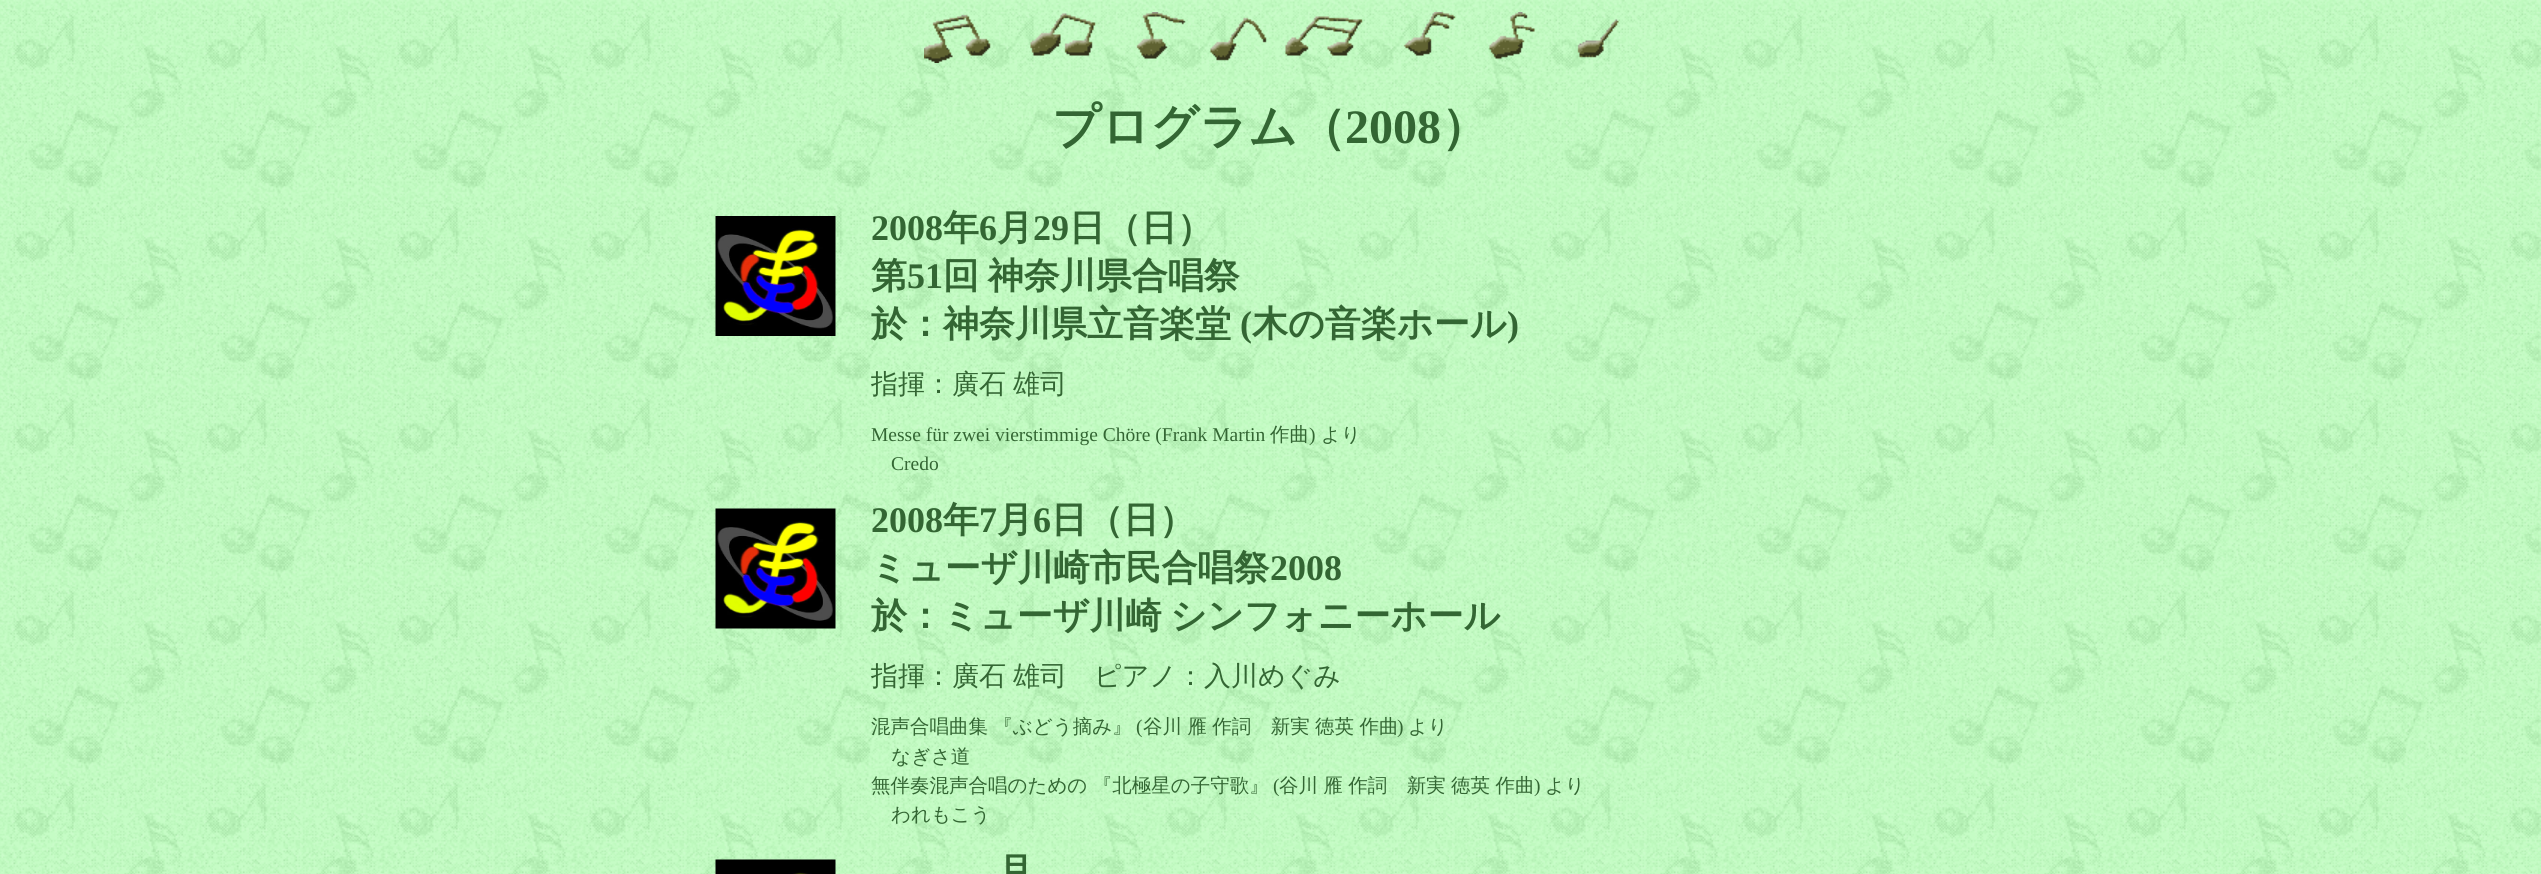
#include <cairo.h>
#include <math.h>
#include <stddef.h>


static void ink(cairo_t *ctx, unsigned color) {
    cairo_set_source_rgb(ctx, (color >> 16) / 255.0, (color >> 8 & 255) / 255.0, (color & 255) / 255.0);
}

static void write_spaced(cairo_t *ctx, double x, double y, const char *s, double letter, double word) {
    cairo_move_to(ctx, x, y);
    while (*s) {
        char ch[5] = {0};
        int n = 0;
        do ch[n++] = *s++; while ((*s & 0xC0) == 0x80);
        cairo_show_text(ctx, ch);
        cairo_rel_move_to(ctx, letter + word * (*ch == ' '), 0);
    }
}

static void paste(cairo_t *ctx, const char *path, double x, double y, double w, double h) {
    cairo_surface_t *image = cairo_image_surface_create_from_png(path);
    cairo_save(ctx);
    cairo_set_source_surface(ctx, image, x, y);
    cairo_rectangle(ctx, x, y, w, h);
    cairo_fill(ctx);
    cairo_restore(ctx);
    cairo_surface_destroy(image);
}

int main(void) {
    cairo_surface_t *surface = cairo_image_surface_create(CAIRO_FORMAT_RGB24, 2541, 874);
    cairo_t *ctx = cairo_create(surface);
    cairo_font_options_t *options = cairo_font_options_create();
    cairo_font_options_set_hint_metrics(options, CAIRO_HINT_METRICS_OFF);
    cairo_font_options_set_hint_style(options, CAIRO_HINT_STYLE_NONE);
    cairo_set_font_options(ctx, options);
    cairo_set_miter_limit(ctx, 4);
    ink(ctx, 0xFFFFFF);
    cairo_paint(ctx);
    paste(ctx, "media/1.png", 0, 0, 2541, 874);
    paste(ctx, "media/2.png", 924, 12, 695, 51);
    cairo_select_font_face(ctx, "WenQuanYi Zen Hei", CAIRO_FONT_SLANT_NORMAL, CAIRO_FONT_WEIGHT_BOLD);
    cairo_set_font_size(ctx, 48);
    ink(ctx, 0x336633);
    cairo_move_to(ctx, 1052, 143);
    cairo_show_text(ctx, "プログラム（");
    cairo_select_font_face(ctx, "Liberation Serif", CAIRO_FONT_SLANT_NORMAL, CAIRO_FONT_WEIGHT_BOLD);
    cairo_move_to(ctx, 1345, 143);
    cairo_show_text(ctx, "2008");
    cairo_select_font_face(ctx, "WenQuanYi Zen Hei", CAIRO_FONT_SLANT_NORMAL, CAIRO_FONT_WEIGHT_BOLD);
    cairo_move_to(ctx, 1441, 143);
    cairo_show_text(ctx, "）");
    paste(ctx, "media/3.png", 715, 216, 121, 120);
    cairo_select_font_face(ctx, "Liberation Serif", CAIRO_FONT_SLANT_NORMAL, CAIRO_FONT_WEIGHT_BOLD);
    cairo_set_font_size(ctx, 36);
    cairo_move_to(ctx, 871, 240);
    cairo_show_text(ctx, "2008");
    cairo_select_font_face(ctx, "WenQuanYi Zen Hei", CAIRO_FONT_SLANT_NORMAL, CAIRO_FONT_WEIGHT_BOLD);
    cairo_move_to(ctx, 943, 240);
    cairo_show_text(ctx, "年");
    cairo_select_font_face(ctx, "Liberation Serif", CAIRO_FONT_SLANT_NORMAL, CAIRO_FONT_WEIGHT_BOLD);
    cairo_move_to(ctx, 979, 240);
    cairo_show_text(ctx, "6");
    cairo_select_font_face(ctx, "WenQuanYi Zen Hei", CAIRO_FONT_SLANT_NORMAL, CAIRO_FONT_WEIGHT_BOLD);
    cairo_move_to(ctx, 997, 240);
    cairo_show_text(ctx, "月");
    cairo_select_font_face(ctx, "Liberation Serif", CAIRO_FONT_SLANT_NORMAL, CAIRO_FONT_WEIGHT_BOLD);
    cairo_move_to(ctx, 1033, 240);
    cairo_show_text(ctx, "29");
    cairo_select_font_face(ctx, "WenQuanYi Zen Hei", CAIRO_FONT_SLANT_NORMAL, CAIRO_FONT_WEIGHT_BOLD);
    cairo_move_to(ctx, 1069, 240);
    cairo_show_text(ctx, "日（日）");
    cairo_move_to(ctx, 871, 288);
    cairo_show_text(ctx, "第");
    cairo_select_font_face(ctx, "Liberation Serif", CAIRO_FONT_SLANT_NORMAL, CAIRO_FONT_WEIGHT_BOLD);
    cairo_move_to(ctx, 907, 288);
    cairo_show_text(ctx, "51");
    cairo_select_font_face(ctx, "WenQuanYi Zen Hei", CAIRO_FONT_SLANT_NORMAL, CAIRO_FONT_WEIGHT_BOLD);
    write_spaced(ctx, 943, 288, "回 神奈川県合唱祭", 0, -2);
    cairo_move_to(ctx, 871, 336);
    cairo_show_text(ctx, "於：神奈川県立音楽堂");
    cairo_select_font_face(ctx, "Liberation Serif", CAIRO_FONT_SLANT_NORMAL, CAIRO_FONT_WEIGHT_BOLD);
    cairo_move_to(ctx, 1240, 336);
    cairo_show_text(ctx, "(");
    cairo_select_font_face(ctx, "WenQuanYi Zen Hei", CAIRO_FONT_SLANT_NORMAL, CAIRO_FONT_WEIGHT_BOLD);
    cairo_move_to(ctx, 1252, 336);
    cairo_show_text(ctx, "木の音楽ホール");
    cairo_select_font_face(ctx, "Liberation Serif", CAIRO_FONT_SLANT_NORMAL, CAIRO_FONT_WEIGHT_BOLD);
    cairo_move_to(ctx, 1507, 336);
    cairo_show_text(ctx, ")");
    cairo_select_font_face(ctx, "WenQuanYi Zen Hei Medium", CAIRO_FONT_SLANT_NORMAL, CAIRO_FONT_WEIGHT_NORMAL);
    cairo_set_font_size(ctx, 27);
    write_spaced(ctx, 871, 393, "指揮：廣石 雄司", 0, -1);
    cairo_select_font_face(ctx, "Liberation Serif", CAIRO_FONT_SLANT_NORMAL, CAIRO_FONT_WEIGHT_NORMAL);
    cairo_set_font_size(ctx, 19.5);
    cairo_move_to(ctx, 871, 441);
    cairo_show_text(ctx, "Messe für zwei vierstimmige Chöre (Frank Martin");
    cairo_select_font_face(ctx, "WenQuanYi Zen Hei Medium", CAIRO_FONT_SLANT_NORMAL, CAIRO_FONT_WEIGHT_NORMAL);
    cairo_move_to(ctx, 1270, 441);
    cairo_show_text(ctx, "作曲");
    cairo_select_font_face(ctx, "Liberation Serif", CAIRO_FONT_SLANT_NORMAL, CAIRO_FONT_WEIGHT_NORMAL);
    cairo_move_to(ctx, 1309, 441);
    cairo_show_text(ctx, ")");
    cairo_select_font_face(ctx, "WenQuanYi Zen Hei Medium", CAIRO_FONT_SLANT_NORMAL, CAIRO_FONT_WEIGHT_NORMAL);
    cairo_move_to(ctx, 1321, 441);
    cairo_show_text(ctx, "より");
    cairo_select_font_face(ctx, "Liberation Serif", CAIRO_FONT_SLANT_NORMAL, CAIRO_FONT_WEIGHT_NORMAL);
    cairo_move_to(ctx, 891, 470);
    cairo_show_text(ctx, "Credo");
    paste(ctx, "media/4.png", 715, 508, 121, 121);
    cairo_select_font_face(ctx, "Liberation Serif", CAIRO_FONT_SLANT_NORMAL, CAIRO_FONT_WEIGHT_BOLD);
    cairo_set_font_size(ctx, 36);
    cairo_move_to(ctx, 871, 532);
    cairo_show_text(ctx, "2008");
    cairo_select_font_face(ctx, "WenQuanYi Zen Hei", CAIRO_FONT_SLANT_NORMAL, CAIRO_FONT_WEIGHT_BOLD);
    cairo_move_to(ctx, 943, 532);
    cairo_show_text(ctx, "年");
    cairo_select_font_face(ctx, "Liberation Serif", CAIRO_FONT_SLANT_NORMAL, CAIRO_FONT_WEIGHT_BOLD);
    cairo_move_to(ctx, 979, 532);
    cairo_show_text(ctx, "7");
    cairo_select_font_face(ctx, "WenQuanYi Zen Hei", CAIRO_FONT_SLANT_NORMAL, CAIRO_FONT_WEIGHT_BOLD);
    cairo_move_to(ctx, 997, 532);
    cairo_show_text(ctx, "月");
    cairo_select_font_face(ctx, "Liberation Serif", CAIRO_FONT_SLANT_NORMAL, CAIRO_FONT_WEIGHT_BOLD);
    cairo_move_to(ctx, 1033, 532);
    cairo_show_text(ctx, "6");
    cairo_select_font_face(ctx, "WenQuanYi Zen Hei", CAIRO_FONT_SLANT_NORMAL, CAIRO_FONT_WEIGHT_BOLD);
    cairo_move_to(ctx, 1051, 532);
    cairo_show_text(ctx, "日（日）");
    cairo_move_to(ctx, 871, 580);
    cairo_show_text(ctx, "ミューザ川崎市民合唱祭");
    cairo_select_font_face(ctx, "Liberation Serif", CAIRO_FONT_SLANT_NORMAL, CAIRO_FONT_WEIGHT_BOLD);
    cairo_move_to(ctx, 1270, 580);
    cairo_show_text(ctx, "2008");
    cairo_select_font_face(ctx, "WenQuanYi Zen Hei", CAIRO_FONT_SLANT_NORMAL, CAIRO_FONT_WEIGHT_BOLD);
    write_spaced(ctx, 871, 628, "於：ミューザ川崎 シンフォニーホール", 0, -2);
    cairo_select_font_face(ctx, "WenQuanYi Zen Hei Medium", CAIRO_FONT_SLANT_NORMAL, CAIRO_FONT_WEIGHT_NORMAL);
    cairo_set_font_size(ctx, 27);
    write_spaced(ctx, 871, 685, "指揮：廣石 雄司　ピアノ：入川めぐみ", 0, -1);
    cairo_set_font_size(ctx, 19.5);
    write_spaced(ctx, 871, 733, "混声合唱曲集 『ぶどう摘み』", 0, -0.5);
    cairo_select_font_face(ctx, "Liberation Serif", CAIRO_FONT_SLANT_NORMAL, CAIRO_FONT_WEIGHT_NORMAL);
    cairo_move_to(ctx, 1136, 733);
    cairo_show_text(ctx, "(");
    cairo_select_font_face(ctx, "WenQuanYi Zen Hei Medium", CAIRO_FONT_SLANT_NORMAL, CAIRO_FONT_WEIGHT_NORMAL);
    write_spaced(ctx, 1143, 733, "谷川 雁 作詞　新実 徳英 作曲", 0, -0.5);
    cairo_select_font_face(ctx, "Liberation Serif", CAIRO_FONT_SLANT_NORMAL, CAIRO_FONT_WEIGHT_NORMAL);
    cairo_move_to(ctx, 1397, 733);
    cairo_show_text(ctx, ")");
    cairo_select_font_face(ctx, "WenQuanYi Zen Hei Medium", CAIRO_FONT_SLANT_NORMAL, CAIRO_FONT_WEIGHT_NORMAL);
    cairo_move_to(ctx, 1408, 733);
    cairo_show_text(ctx, "より");
    cairo_move_to(ctx, 891, 763);
    cairo_show_text(ctx, "なぎさ道");
    write_spaced(ctx, 871, 792, "無伴奏混声合唱のための 『北極星の子守歌』", 0, -0.5);
    cairo_select_font_face(ctx, "Liberation Serif", CAIRO_FONT_SLANT_NORMAL, CAIRO_FONT_WEIGHT_NORMAL);
    cairo_move_to(ctx, 1273, 792);
    cairo_show_text(ctx, "(");
    cairo_select_font_face(ctx, "WenQuanYi Zen Hei Medium", CAIRO_FONT_SLANT_NORMAL, CAIRO_FONT_WEIGHT_NORMAL);
    write_spaced(ctx, 1279, 792, "谷川 雁 作詞　新実 徳英 作曲", 0, -0.5);
    cairo_select_font_face(ctx, "Liberation Serif", CAIRO_FONT_SLANT_NORMAL, CAIRO_FONT_WEIGHT_NORMAL);
    cairo_move_to(ctx, 1534, 792);
    cairo_show_text(ctx, ")");
    cairo_select_font_face(ctx, "WenQuanYi Zen Hei Medium", CAIRO_FONT_SLANT_NORMAL, CAIRO_FONT_WEIGHT_NORMAL);
    cairo_move_to(ctx, 1545, 792);
    cairo_show_text(ctx, "より");
    cairo_move_to(ctx, 891, 821);
    cairo_show_text(ctx, "われもこう");
    paste(ctx, "media/5.png", 715, 859, 121, 15);
    cairo_select_font_face(ctx, "WenQuanYi Zen Hei", CAIRO_FONT_SLANT_NORMAL, CAIRO_FONT_WEIGHT_BOLD);
    cairo_set_font_size(ctx, 36);
    cairo_move_to(ctx, 997, 883);
    cairo_show_text(ctx, "月");
    cairo_surface_write_to_png(surface, "image.png");
    cairo_font_options_destroy(options);
    cairo_destroy(ctx);
    cairo_surface_destroy(surface);
    return 0;
}
